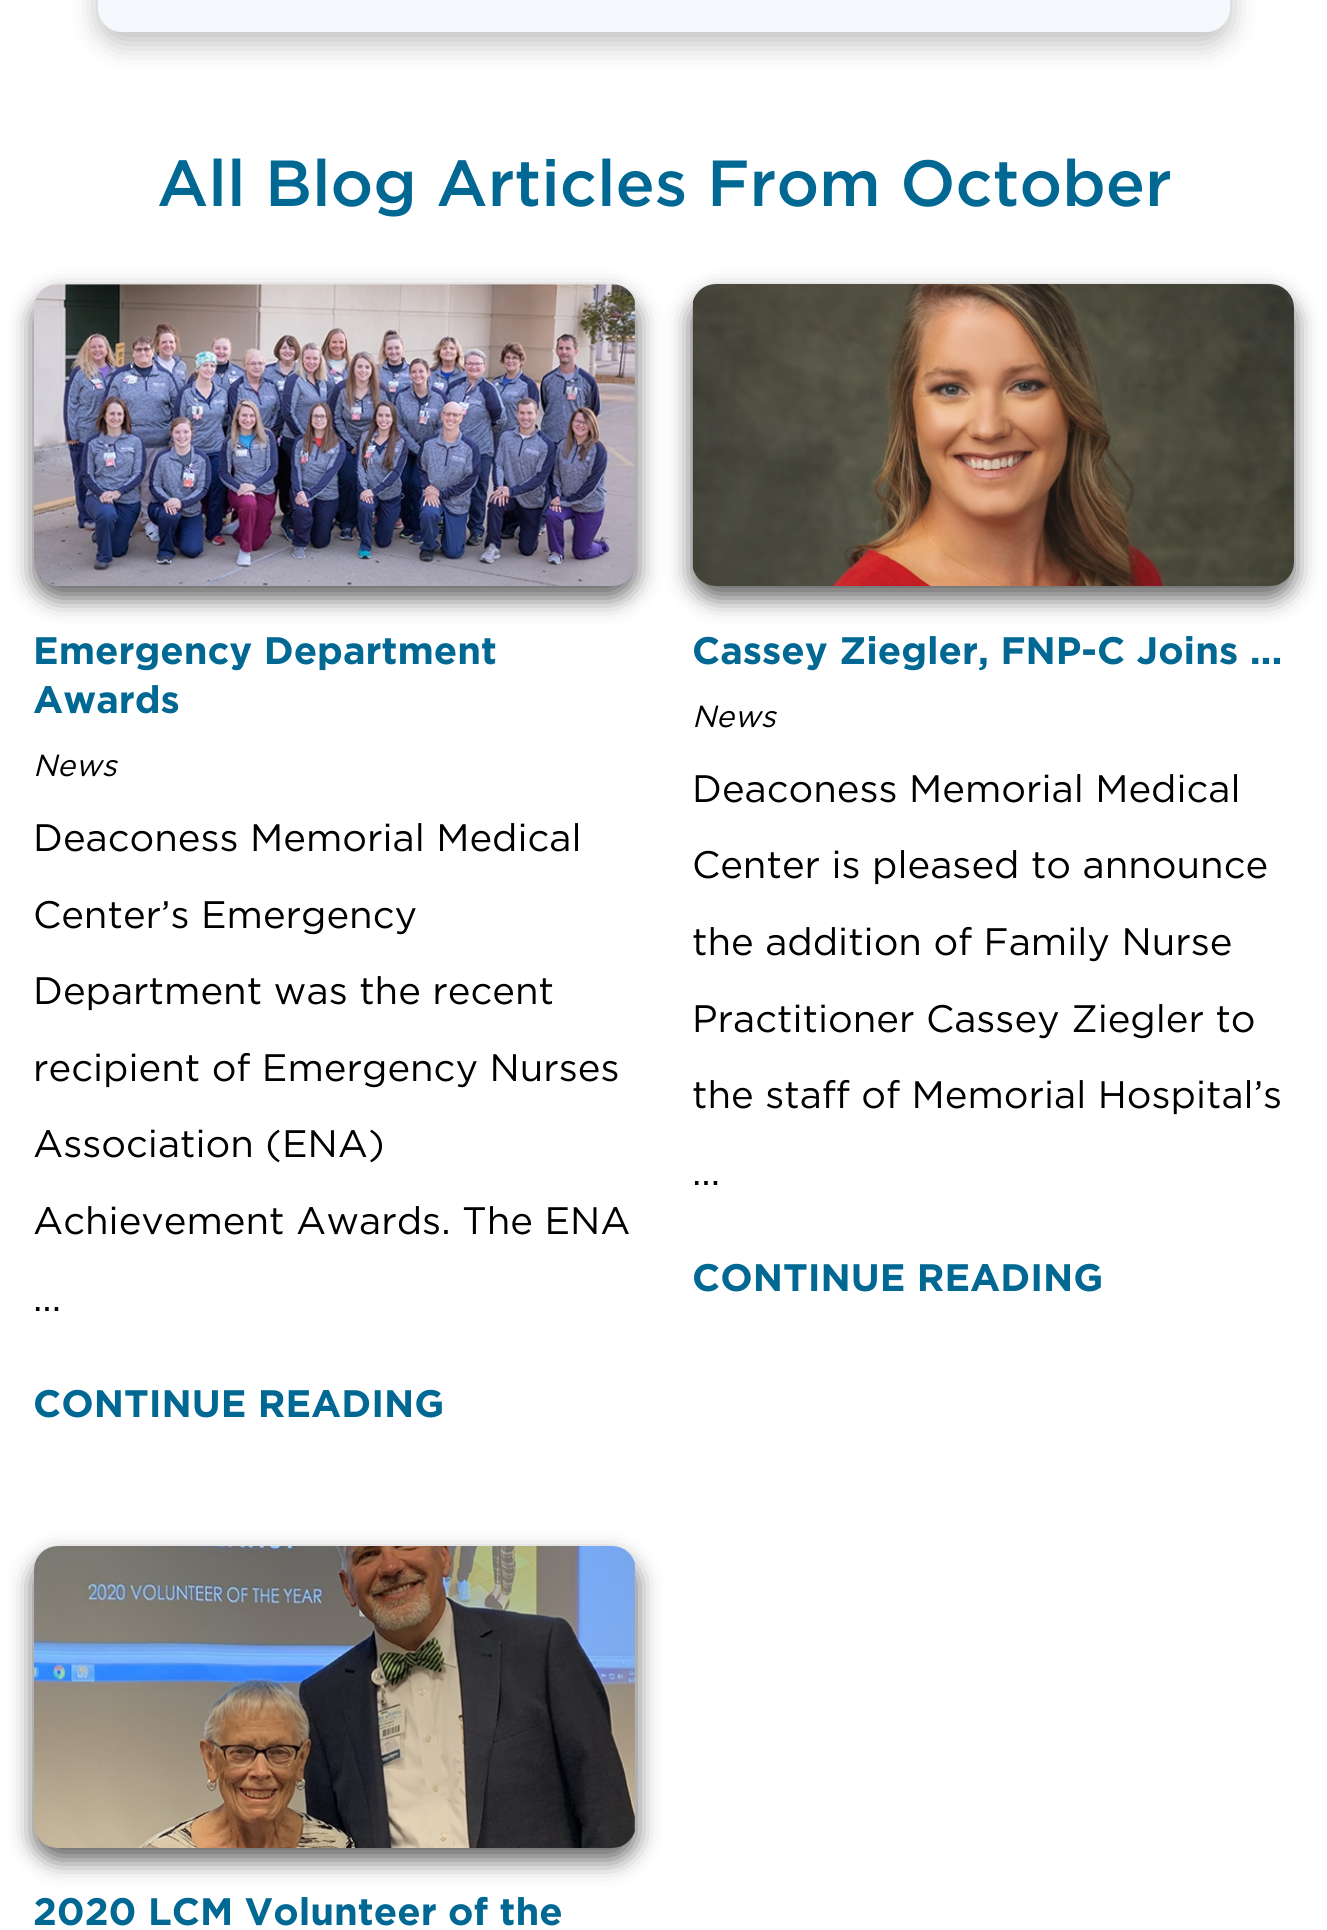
#include <cairo.h>
#include <math.h>
#include <stddef.h>

typedef struct { double x, y; const char *s; } line_t;

static void ink(cairo_t *ctx, unsigned color) {
    cairo_set_source_rgb(ctx, (color >> 16) / 255.0, (color >> 8 & 255) / 255.0, (color & 255) / 255.0);
}

static void round_path(cairo_t *ctx, double x, double y, double w, double h, double r) {
    cairo_new_sub_path(ctx);
    cairo_arc(ctx, x + w - r, y + h - r, r, 0, M_PI / 2);
    cairo_arc(ctx, x + r, y + h - r, r, M_PI / 2, M_PI);
    cairo_arc(ctx, x + r, y + r, r, M_PI, 1.5 * M_PI);
    cairo_arc(ctx, x + w - r, y + r, r, 1.5 * M_PI, 2 * M_PI);
    cairo_close_path(ctx);
}

static void blur_box(cairo_t *ctx, double x, double y, double w, double h, double r, double blur, double alpha) {
    cairo_push_group_with_content(ctx, CAIRO_CONTENT_ALPHA);
    cairo_set_operator(ctx, CAIRO_OPERATOR_SOURCE);
    for (int i = 15; i >= -15 && fmin(w, h) + blur * i / 3 > 0; i -= 2) {
        double e = blur * i / 6;
        cairo_set_source_rgba(ctx, 0, 0, 0, alpha * erfc((i - 1) / 8.5) / 2);
        round_path(ctx, x - e, y - e, w + 2 * e, h + 2 * e, fmax(0, fmin(r + e + blur * .6, fmin(w, h) / 2 + e)));
        cairo_fill(ctx);
    }
    cairo_pattern_t *soft = cairo_pop_group(ctx);
    cairo_mask(ctx, soft);
    cairo_pattern_destroy(soft);
}

static void paste(cairo_t *ctx, const char *path, double x, double y, double w, double h) {
    cairo_surface_t *image = cairo_image_surface_create_from_png(path);
    cairo_save(ctx);
    cairo_set_source_surface(ctx, image, x, y);
    cairo_rectangle(ctx, x, y, w, h);
    cairo_fill(ctx);
    cairo_restore(ctx);
    cairo_surface_destroy(image);
}

int main(void) {
    cairo_surface_t *surface = cairo_image_surface_create(CAIRO_FORMAT_RGB24, 1327, 1930);
    cairo_t *ctx = cairo_create(surface);
    cairo_font_options_t *options = cairo_font_options_create();
    cairo_font_options_set_hint_metrics(options, CAIRO_HINT_METRICS_OFF);
    cairo_font_options_set_hint_style(options, CAIRO_HINT_STYLE_NONE);
    cairo_set_font_options(ctx, options);
    cairo_set_miter_limit(ctx, 4);
    ink(ctx, 0xFFFFFF);
    cairo_paint(ctx);
    ink(ctx, 0x000000);
    blur_box(ctx, 98, -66, 1132, 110, 24, 14, 0.25);
    ink(ctx, 0xF5F9FD);
    round_path(ctx, 98, -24, 1132, 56, 24);
    cairo_fill(ctx);
    cairo_select_font_face(ctx, "Gotham Medium", CAIRO_FONT_SLANT_NORMAL, CAIRO_FONT_WEIGHT_NORMAL);
    cairo_set_font_size(ctx, 65);
    ink(ctx, 0x006892);
    cairo_move_to(ctx, 157, 206);
    cairo_show_text(ctx, "All Blog Articles From October");
    ink(ctx, 0x000000);
    blur_box(ctx, 34, 296, 602, 302, 24, 12, 0.62);
    paste(ctx, "media/1.png", 34, 284, 601, 302);
    cairo_select_font_face(ctx, "Gotham", CAIRO_FONT_SLANT_NORMAL, CAIRO_FONT_WEIGHT_BOLD);
    cairo_set_font_size(ctx, 38.25);
    ink(ctx, 0x006892);
    cairo_move_to(ctx, 33, 664);
    cairo_show_text(ctx, "Emergency Department");
    cairo_move_to(ctx, 33, 713);
    cairo_show_text(ctx, "Awards");
    cairo_select_font_face(ctx, "Gotham", CAIRO_FONT_SLANT_ITALIC, CAIRO_FONT_WEIGHT_NORMAL);
    cairo_set_font_size(ctx, 30.5);
    ink(ctx, 0x000000);
    cairo_move_to(ctx, 33, 776);
    cairo_show_text(ctx, "News");
    cairo_select_font_face(ctx, "Gotham", CAIRO_FONT_SLANT_NORMAL, CAIRO_FONT_WEIGHT_NORMAL);
    cairo_set_font_size(ctx, 38.25);
    {
        static const line_t items[] = {
            {33, 851, "Deaconess Memorial Medical"},
            {33, 928, "Center’s Emergency"},
            {33, 1004, "Department was the recent"},
            {33, 1081, "recipient of Emergency Nurses"},
            {33, 1157, "Association (ENA)"},
            {33, 1234, "Achievement Awards. The ENA"},
            {33, 1311, "..."},
        };
        for (size_t i = 0; i < sizeof items / sizeof *items; i++) {
            cairo_move_to(ctx, items[i].x, items[i].y);
            cairo_show_text(ctx, items[i].s);
        }
    }
    cairo_select_font_face(ctx, "Gotham", CAIRO_FONT_SLANT_NORMAL, CAIRO_FONT_WEIGHT_BOLD);
    ink(ctx, 0x006892);
    cairo_move_to(ctx, 33, 1417);
    cairo_show_text(ctx, "CONTINUE READING");
    ink(ctx, 0x000000);
    blur_box(ctx, 692, 296, 602, 302, 24, 12, 0.62);
    paste(ctx, "media/2.png", 692, 284, 602, 302);
    ink(ctx, 0x006892);
    cairo_move_to(ctx, 692, 664);
    cairo_show_text(ctx, "Cassey Ziegler, FNP-C Joins ...");
    cairo_select_font_face(ctx, "Gotham", CAIRO_FONT_SLANT_ITALIC, CAIRO_FONT_WEIGHT_NORMAL);
    cairo_set_font_size(ctx, 30.5);
    ink(ctx, 0x000000);
    cairo_move_to(ctx, 692, 727);
    cairo_show_text(ctx, "News");
    cairo_select_font_face(ctx, "Gotham", CAIRO_FONT_SLANT_NORMAL, CAIRO_FONT_WEIGHT_NORMAL);
    cairo_set_font_size(ctx, 38.25);
    {
        static const line_t items[] = {
            {692, 802, "Deaconess Memorial Medical"},
            {692, 878, "Center is pleased to announce"},
            {692, 955, "the addition of Family Nurse"},
            {692, 1032, "Practitioner Cassey Ziegler to"},
            {692, 1108, "the staff of Memorial Hospital’s"},
            {692, 1185, "..."},
        };
        for (size_t i = 0; i < sizeof items / sizeof *items; i++) {
            cairo_move_to(ctx, items[i].x, items[i].y);
            cairo_show_text(ctx, items[i].s);
        }
    }
    cairo_select_font_face(ctx, "Gotham", CAIRO_FONT_SLANT_NORMAL, CAIRO_FONT_WEIGHT_BOLD);
    ink(ctx, 0x006892);
    cairo_move_to(ctx, 692, 1291);
    cairo_show_text(ctx, "CONTINUE READING");
    ink(ctx, 0x000000);
    blur_box(ctx, 34, 1558, 602, 302, 24, 12, 0.62);
    paste(ctx, "media/3.png", 34, 1546, 601, 302);
    ink(ctx, 0x006892);
    cairo_move_to(ctx, 33, 1925);
    cairo_show_text(ctx, "2020 LCM Volunteer of the");
    cairo_surface_write_to_png(surface, "image.png");
    cairo_font_options_destroy(options);
    cairo_destroy(ctx);
    cairo_surface_destroy(surface);
    return 0;
}
